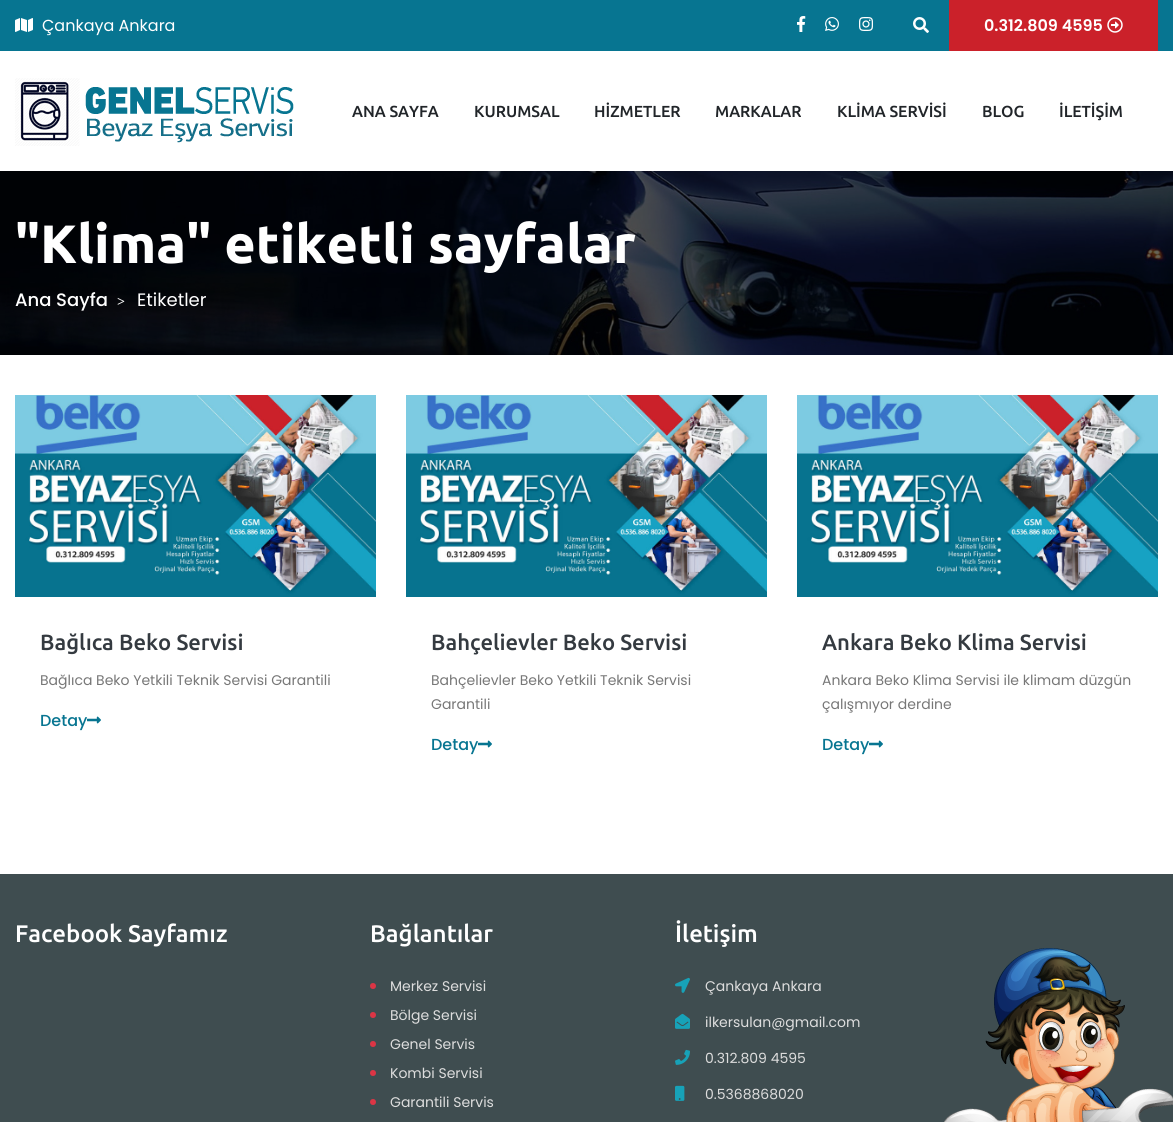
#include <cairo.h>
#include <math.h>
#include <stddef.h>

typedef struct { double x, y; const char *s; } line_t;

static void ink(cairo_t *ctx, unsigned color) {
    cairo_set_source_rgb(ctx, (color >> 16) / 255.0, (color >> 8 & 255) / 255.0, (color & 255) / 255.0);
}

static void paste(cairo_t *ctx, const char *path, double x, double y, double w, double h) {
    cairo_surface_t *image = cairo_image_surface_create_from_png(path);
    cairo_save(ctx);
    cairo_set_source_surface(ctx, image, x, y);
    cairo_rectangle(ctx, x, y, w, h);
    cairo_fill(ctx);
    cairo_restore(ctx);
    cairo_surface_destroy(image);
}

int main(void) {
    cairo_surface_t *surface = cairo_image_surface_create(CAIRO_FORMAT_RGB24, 1173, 1122);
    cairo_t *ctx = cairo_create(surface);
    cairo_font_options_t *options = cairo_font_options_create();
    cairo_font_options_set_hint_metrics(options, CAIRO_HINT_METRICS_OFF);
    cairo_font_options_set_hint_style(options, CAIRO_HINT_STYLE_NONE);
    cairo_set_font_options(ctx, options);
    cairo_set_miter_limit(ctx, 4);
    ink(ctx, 0xFFFFFF);
    cairo_paint(ctx);
    ink(ctx, 0x077591);
    cairo_rectangle(ctx, 0, 0, 1173, 51);
    cairo_fill(ctx);
    paste(ctx, "media/1.png", 15, 18, 18, 14);
    cairo_select_font_face(ctx, "Poppins", CAIRO_FONT_SLANT_NORMAL, CAIRO_FONT_WEIGHT_NORMAL);
    cairo_set_font_size(ctx, 16);
    ink(ctx, 0xFFFFFF);
    cairo_move_to(ctx, 42, 31);
    cairo_show_text(ctx, "Çankaya Ankara");
    paste(ctx, "media/2.png", 797, 16, 9, 16);
    paste(ctx, "media/3.png", 825, 17, 14, 14);
    paste(ctx, "media/4.png", 859, 17, 14, 14);
    paste(ctx, "media/5.png", 913, 17, 16, 16);
    ink(ctx, 0xCB212A);
    cairo_rectangle(ctx, 949, 0, 209, 51);
    cairo_fill(ctx);
    cairo_select_font_face(ctx, "Poppins SemiBold", CAIRO_FONT_SLANT_NORMAL, CAIRO_FONT_WEIGHT_NORMAL);
    ink(ctx, 0xFFFFFF);
    cairo_move_to(ctx, 984, 31);
    cairo_show_text(ctx, "0.312.809 4595");
    paste(ctx, "media/6.png", 1107, 17, 16, 16);
    paste(ctx, "media/7.png", 15, 78, 279, 68);
    cairo_select_font_face(ctx, "Ubuntu Medium", CAIRO_FONT_SLANT_NORMAL, CAIRO_FONT_WEIGHT_NORMAL);
    ink(ctx, 0x212529);
    {
        static const line_t items[] = {
            {352, 117, "ANA SAYFA"},
            {474, 117, "KURUMSAL"},
            {594, 117, "HİZMETLER"},
            {715, 117, "MARKALAR"},
            {837, 117, "KLİMA SERVİSİ"},
            {982, 117, "BLOG"},
            {1059, 117, "İLETİŞİM"},
        };
        for (size_t i = 0; i < sizeof items / sizeof *items; i++) {
            cairo_move_to(ctx, items[i].x, items[i].y);
            cairo_show_text(ctx, items[i].s);
        }
    }
    paste(ctx, "media/8.png", 0, 171, 1173, 184);
    cairo_select_font_face(ctx, "Ubuntu", CAIRO_FONT_SLANT_NORMAL, CAIRO_FONT_WEIGHT_BOLD);
    cairo_set_font_size(ctx, 54);
    ink(ctx, 0xFFFFFF);
    cairo_move_to(ctx, 15, 263);
    cairo_show_text(ctx, "\"Klima\" etiketli sayfalar");
    cairo_select_font_face(ctx, "Poppins Medium", CAIRO_FONT_SLANT_NORMAL, CAIRO_FONT_WEIGHT_NORMAL);
    cairo_set_font_size(ctx, 18);
    cairo_move_to(ctx, 15, 306);
    cairo_show_text(ctx, "Ana Sayfa");
    cairo_select_font_face(ctx, "Liberation Serif", CAIRO_FONT_SLANT_NORMAL, CAIRO_FONT_WEIGHT_BOLD);
    cairo_set_font_size(ctx, 14);
    cairo_move_to(ctx, 117, 306);
    cairo_show_text(ctx, ">");
    cairo_select_font_face(ctx, "Poppins", CAIRO_FONT_SLANT_NORMAL, CAIRO_FONT_WEIGHT_NORMAL);
    cairo_set_font_size(ctx, 18);
    cairo_move_to(ctx, 137, 306);
    cairo_show_text(ctx, "Etiketler");
    paste(ctx, "media/9.png", 15, 395, 361, 202);
    cairo_select_font_face(ctx, "Ubuntu Medium", CAIRO_FONT_SLANT_NORMAL, CAIRO_FONT_WEIGHT_NORMAL);
    cairo_set_font_size(ctx, 22);
    ink(ctx, 0x343A40);
    cairo_move_to(ctx, 40, 650);
    cairo_show_text(ctx, "Bağlıca Beko Servisi");
    cairo_select_font_face(ctx, "Poppins", CAIRO_FONT_SLANT_NORMAL, CAIRO_FONT_WEIGHT_NORMAL);
    cairo_set_font_size(ctx, 14);
    ink(ctx, 0x777777);
    cairo_move_to(ctx, 40, 685);
    cairo_show_text(ctx, "Bağlıca Beko Yetkili Teknik Servisi Garantili");
    cairo_select_font_face(ctx, "Poppins Medium", CAIRO_FONT_SLANT_NORMAL, CAIRO_FONT_WEIGHT_NORMAL);
    cairo_set_font_size(ctx, 16);
    ink(ctx, 0x077591);
    cairo_move_to(ctx, 40, 726);
    cairo_show_text(ctx, "Detay");
    paste(ctx, "media/10.png", 87, 716, 14, 8);
    paste(ctx, "media/9.png", 406, 395, 361, 202);
    cairo_select_font_face(ctx, "Ubuntu Medium", CAIRO_FONT_SLANT_NORMAL, CAIRO_FONT_WEIGHT_NORMAL);
    cairo_set_font_size(ctx, 22);
    ink(ctx, 0x343A40);
    cairo_move_to(ctx, 431, 650);
    cairo_show_text(ctx, "Bahçelievler Beko Servisi");
    cairo_select_font_face(ctx, "Poppins", CAIRO_FONT_SLANT_NORMAL, CAIRO_FONT_WEIGHT_NORMAL);
    cairo_set_font_size(ctx, 14);
    ink(ctx, 0x777777);
    cairo_move_to(ctx, 431, 685);
    cairo_show_text(ctx, "Bahçelievler Beko Yetkili Teknik Servisi");
    cairo_move_to(ctx, 431, 709);
    cairo_show_text(ctx, "Garantili");
    cairo_select_font_face(ctx, "Poppins Medium", CAIRO_FONT_SLANT_NORMAL, CAIRO_FONT_WEIGHT_NORMAL);
    cairo_set_font_size(ctx, 16);
    ink(ctx, 0x077591);
    cairo_move_to(ctx, 431, 750);
    cairo_show_text(ctx, "Detay");
    paste(ctx, "media/10.png", 478, 740, 14, 8);
    paste(ctx, "media/9.png", 797, 395, 361, 202);
    cairo_select_font_face(ctx, "Ubuntu Medium", CAIRO_FONT_SLANT_NORMAL, CAIRO_FONT_WEIGHT_NORMAL);
    cairo_set_font_size(ctx, 22);
    ink(ctx, 0x343A40);
    cairo_move_to(ctx, 822, 650);
    cairo_show_text(ctx, "Ankara Beko Klima Servisi");
    cairo_select_font_face(ctx, "Poppins", CAIRO_FONT_SLANT_NORMAL, CAIRO_FONT_WEIGHT_NORMAL);
    cairo_set_font_size(ctx, 14);
    ink(ctx, 0x777777);
    cairo_move_to(ctx, 822, 685);
    cairo_show_text(ctx, "Ankara Beko Klima Servisi ile klimam düzgün");
    cairo_move_to(ctx, 822, 709);
    cairo_show_text(ctx, "çalışmıyor derdine");
    cairo_select_font_face(ctx, "Poppins Medium", CAIRO_FONT_SLANT_NORMAL, CAIRO_FONT_WEIGHT_NORMAL);
    cairo_set_font_size(ctx, 16);
    ink(ctx, 0x077591);
    cairo_move_to(ctx, 822, 750);
    cairo_show_text(ctx, "Detay");
    paste(ctx, "media/10.png", 869, 740, 14, 8);
    ink(ctx, 0x3F4D50);
    cairo_rectangle(ctx, 0, 874, 1173, 248);
    cairo_fill(ctx);
    cairo_select_font_face(ctx, "Ubuntu Medium", CAIRO_FONT_SLANT_NORMAL, CAIRO_FONT_WEIGHT_NORMAL);
    cairo_set_font_size(ctx, 24);
    ink(ctx, 0xFFFFFF);
    cairo_move_to(ctx, 15, 942);
    cairo_show_text(ctx, "Facebook Sayfamız");
    cairo_move_to(ctx, 370, 942);
    cairo_show_text(ctx, "Bağlantılar");
    ink(ctx, 0xDC3545);
    cairo_new_path(ctx);
    cairo_arc(ctx, 373, 986, 3, 0, 2 * M_PI);
    cairo_fill(ctx);
    cairo_select_font_face(ctx, "Poppins", CAIRO_FONT_SLANT_NORMAL, CAIRO_FONT_WEIGHT_NORMAL);
    cairo_set_font_size(ctx, 14);
    ink(ctx, 0xDDDDDD);
    cairo_move_to(ctx, 390, 991);
    cairo_show_text(ctx, "Merkez Servisi");
    ink(ctx, 0xDC3545);
    cairo_new_path(ctx);
    cairo_arc(ctx, 373, 1015, 3, 0, 2 * M_PI);
    cairo_fill(ctx);
    ink(ctx, 0xDDDDDD);
    cairo_move_to(ctx, 390, 1020);
    cairo_show_text(ctx, "Bölge Servisi");
    ink(ctx, 0xDC3545);
    cairo_new_path(ctx);
    cairo_arc(ctx, 373, 1044, 3, 0, 2 * M_PI);
    cairo_fill(ctx);
    ink(ctx, 0xDDDDDD);
    cairo_move_to(ctx, 390, 1049);
    cairo_show_text(ctx, "Genel Servis");
    ink(ctx, 0xDC3545);
    cairo_new_path(ctx);
    cairo_arc(ctx, 373, 1073, 3, 0, 2 * M_PI);
    cairo_fill(ctx);
    ink(ctx, 0xDDDDDD);
    cairo_move_to(ctx, 390, 1078);
    cairo_show_text(ctx, "Kombi Servisi");
    ink(ctx, 0xDC3545);
    cairo_new_path(ctx);
    cairo_arc(ctx, 373, 1102, 3, 0, 2 * M_PI);
    cairo_fill(ctx);
    ink(ctx, 0xDDDDDD);
    cairo_move_to(ctx, 390, 1107);
    cairo_show_text(ctx, "Garantili Servis");
    cairo_select_font_face(ctx, "Ubuntu Medium", CAIRO_FONT_SLANT_NORMAL, CAIRO_FONT_WEIGHT_NORMAL);
    cairo_set_font_size(ctx, 24);
    ink(ctx, 0xFFFFFF);
    cairo_move_to(ctx, 675, 942);
    cairo_show_text(ctx, "İletişim");
    paste(ctx, "media/11.png", 675, 977, 15, 16);
    cairo_select_font_face(ctx, "Poppins", CAIRO_FONT_SLANT_NORMAL, CAIRO_FONT_WEIGHT_NORMAL);
    cairo_set_font_size(ctx, 14);
    ink(ctx, 0xDDDDDD);
    cairo_move_to(ctx, 705, 991);
    cairo_show_text(ctx, "Çankaya Ankara");
    paste(ctx, "media/12.png", 675, 1013, 15, 16);
    cairo_move_to(ctx, 705, 1027);
    cairo_show_text(ctx, "ilkersulan@gmail.com");
    paste(ctx, "media/13.png", 675, 1049, 15, 16);
    cairo_move_to(ctx, 705, 1063);
    cairo_show_text(ctx, "0.312.809 4595");
    paste(ctx, "media/14.png", 675, 1085, 10, 16);
    cairo_move_to(ctx, 705, 1099);
    cairo_show_text(ctx, "0.5368868020");
    paste(ctx, "media/15.png", 944, 948, 229, 174);
    cairo_surface_write_to_png(surface, "image.png");
    cairo_font_options_destroy(options);
    cairo_destroy(ctx);
    cairo_surface_destroy(surface);
    return 0;
}
